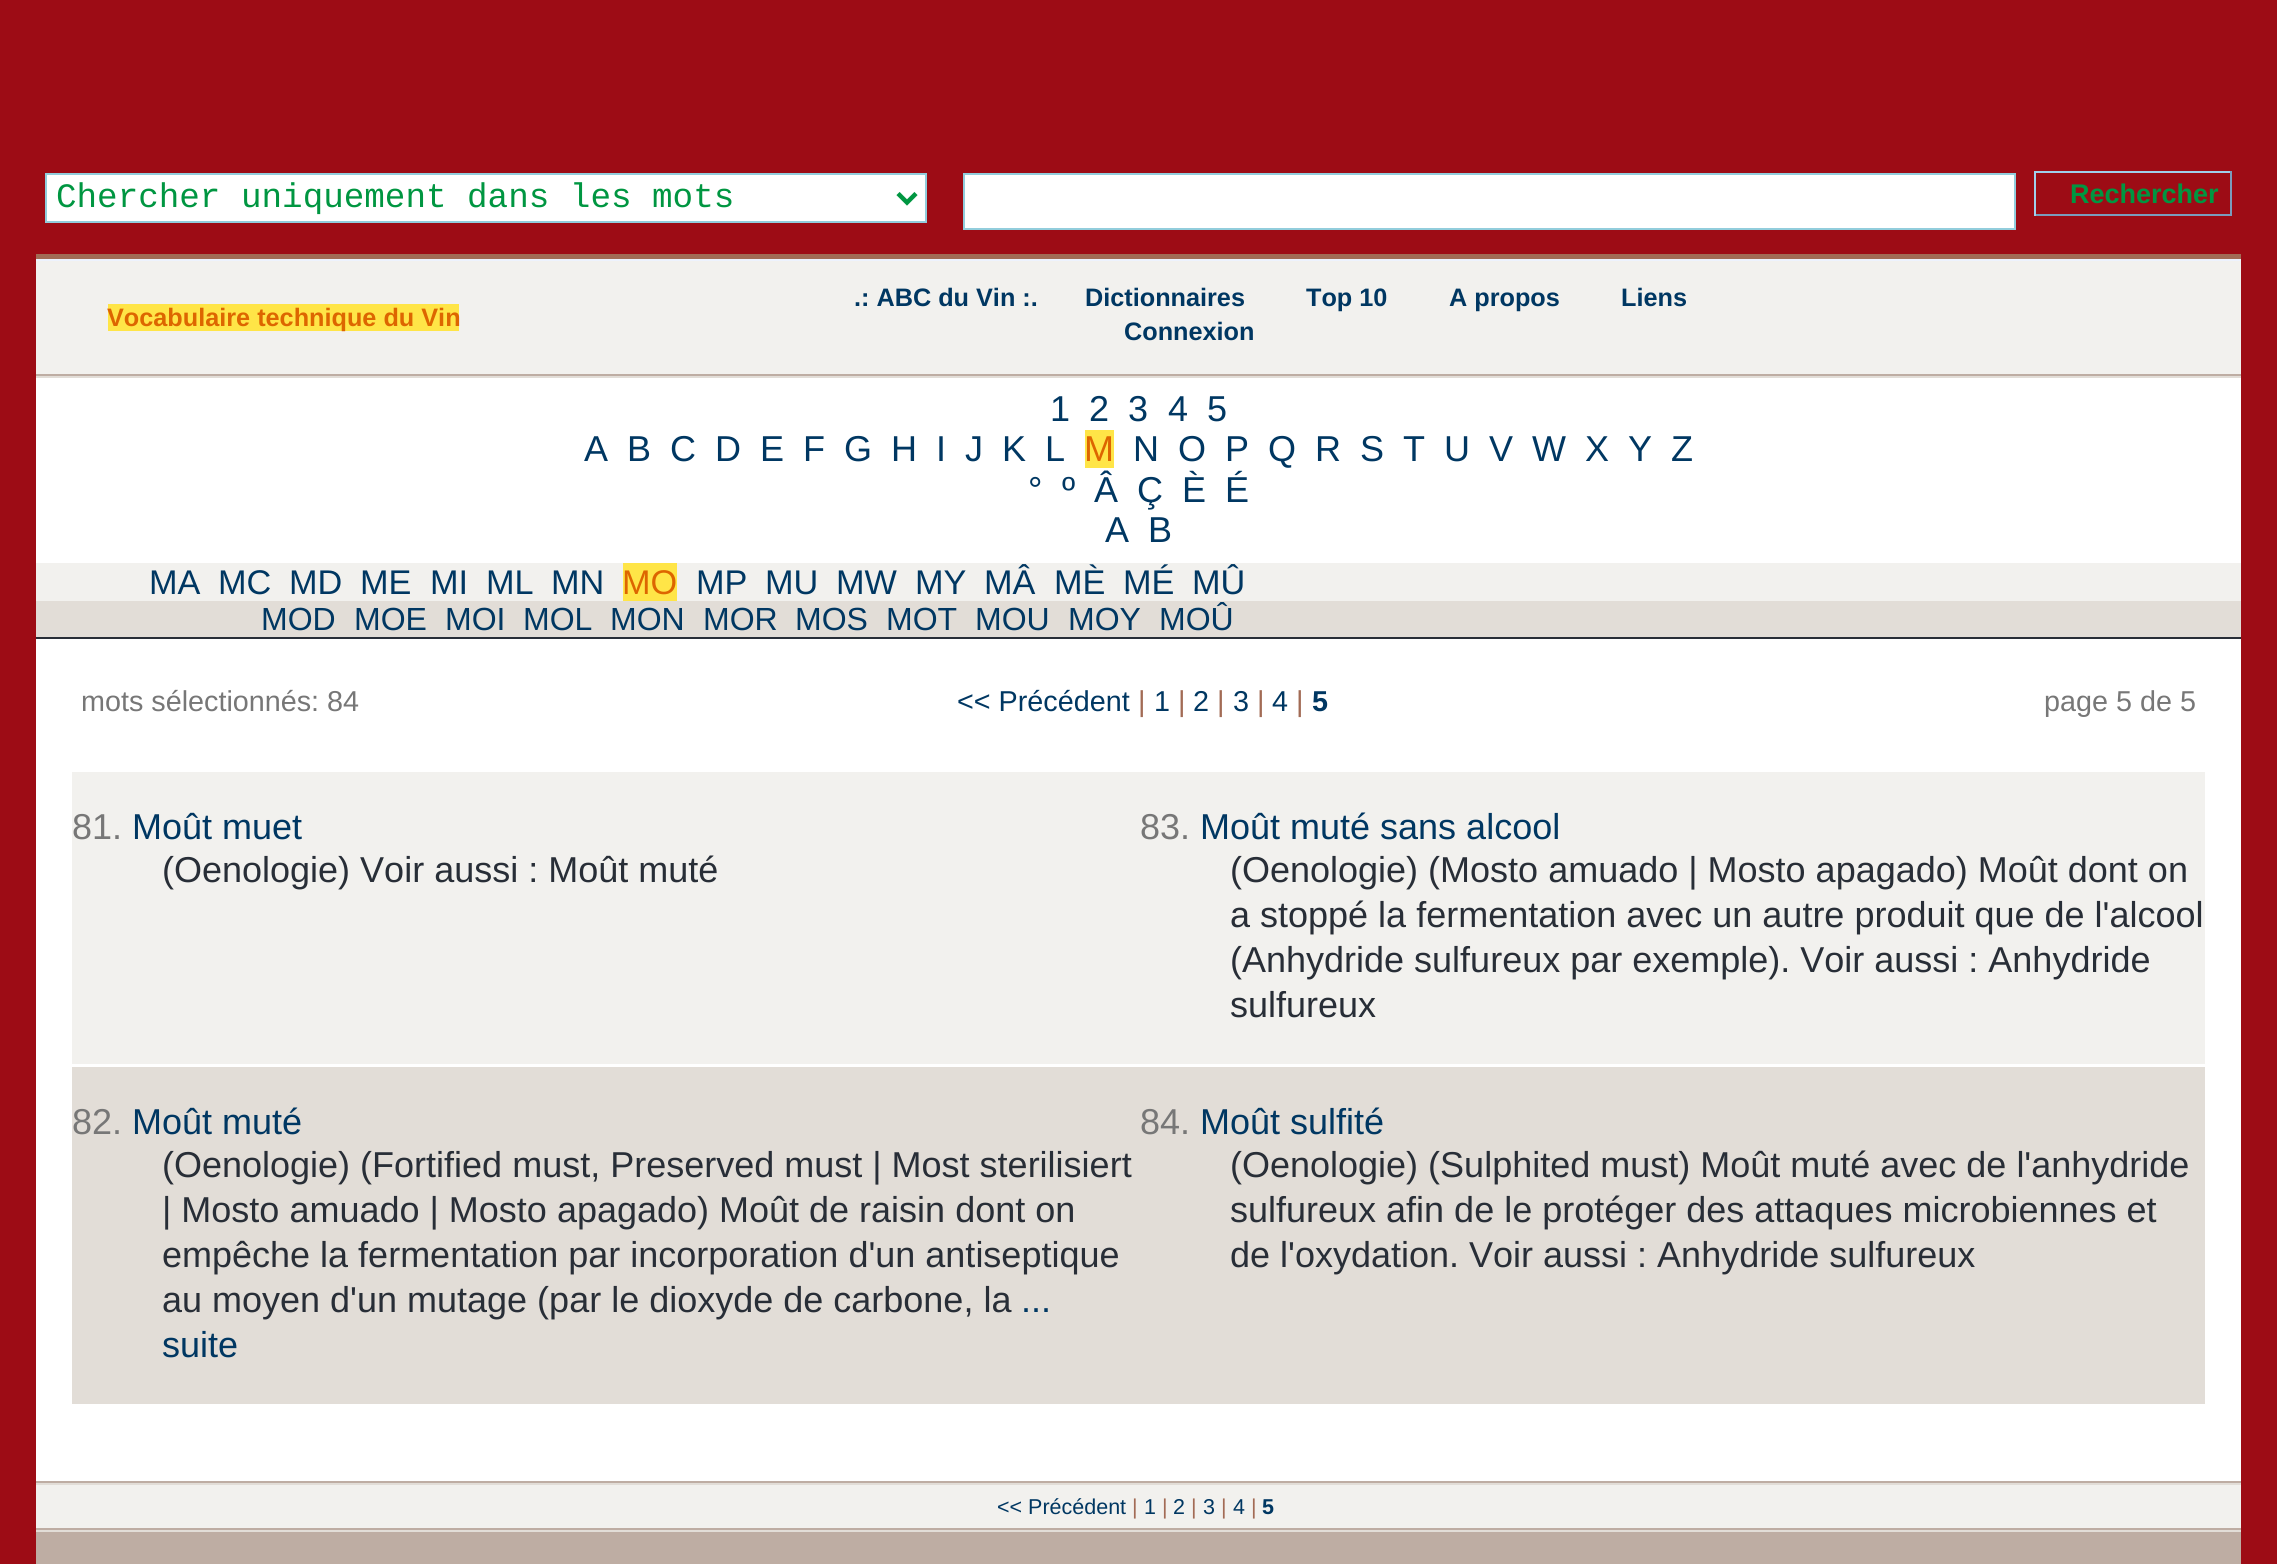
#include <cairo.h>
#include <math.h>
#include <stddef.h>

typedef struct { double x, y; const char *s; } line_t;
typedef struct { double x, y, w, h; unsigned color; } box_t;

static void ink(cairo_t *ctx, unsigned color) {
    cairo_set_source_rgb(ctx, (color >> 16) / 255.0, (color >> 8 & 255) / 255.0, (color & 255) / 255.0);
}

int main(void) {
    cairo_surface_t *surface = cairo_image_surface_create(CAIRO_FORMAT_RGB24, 2277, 1564);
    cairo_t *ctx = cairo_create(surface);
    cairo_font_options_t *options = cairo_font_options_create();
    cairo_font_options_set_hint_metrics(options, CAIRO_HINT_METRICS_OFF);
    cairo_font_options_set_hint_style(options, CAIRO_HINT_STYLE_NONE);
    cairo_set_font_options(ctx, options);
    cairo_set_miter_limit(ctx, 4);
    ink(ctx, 0x9D0C15);
    cairo_paint(ctx);
    ink(ctx, 0xFFFFFF);
    cairo_rectangle(ctx, 46, 174, 880, 48);
    cairo_fill_preserve(ctx);
    ink(ctx, 0x92CDDC);
    cairo_stroke(ctx);
    cairo_new_path(ctx);
    cairo_move_to(ctx, 898, 193.5);
    cairo_line_to(ctx, 907, 202.5);
    cairo_line_to(ctx, 916, 193.5);
    ink(ctx, 0x009641);
    cairo_set_line_width(ctx, 4.5);
    cairo_stroke(ctx);
    cairo_select_font_face(ctx, "Liberation Mono", CAIRO_FONT_SLANT_NORMAL, CAIRO_FONT_WEIGHT_NORMAL);
    cairo_set_font_size(ctx, 34.25);
    cairo_move_to(ctx, 56, 207);
    cairo_show_text(ctx, "Chercher uniquement dans les mots");
    ink(ctx, 0xFFFFFF);
    cairo_rectangle(ctx, 964, 174, 1051, 55);
    cairo_fill_preserve(ctx);
    ink(ctx, 0x92CDDC);
    cairo_set_line_width(ctx, 2);
    cairo_stroke(ctx);
    {
        static const box_t items[] = {
            {2034, 171, 198, 2, 0xA0D0EC},
            {2230, 171, 2, 45, 0x7B9CBC},
            {2034, 214, 198, 2, 0x7B9CBC},
            {2034, 171, 2, 45, 0xA0D0EC},
        };
        for (size_t i = 0; i < sizeof items / sizeof *items; i++) {
            ink(ctx, items[i].color);
            cairo_rectangle(ctx, items[i].x, items[i].y, items[i].w, items[i].h);
            cairo_fill(ctx);
        }
    }
    cairo_select_font_face(ctx, "Liberation Sans", CAIRO_FONT_SLANT_NORMAL, CAIRO_FONT_WEIGHT_BOLD);
    cairo_set_font_size(ctx, 27);
    ink(ctx, 0x009641);
    cairo_move_to(ctx, 2070, 203);
    cairo_show_text(ctx, "Rechercher");
    {
        static const box_t items[] = {
            {36, 259, 2205, 2, 0xEDF2FD},
            {36, 254, 2205, 5, 0xA26B55},
            {36, 261, 2205, 113, 0xF2F1EE},
            {108, 304, 351, 27, 0xFFE547},
        };
        for (size_t i = 0; i < sizeof items / sizeof *items; i++) {
            ink(ctx, items[i].color);
            cairo_rectangle(ctx, items[i].x, items[i].y, items[i].w, items[i].h);
            cairo_fill(ctx);
        }
    }
    cairo_set_font_size(ctx, 25.25);
    ink(ctx, 0xDD6600);
    cairo_move_to(ctx, 107, 326);
    cairo_show_text(ctx, "Vocabulaire technique du Vin");
    ink(ctx, 0x003762);
    {
        static const line_t items[] = {
            {854, 306, ".: ABC du Vin :."},
            {1085, 306, "Dictionnaires"},
            {1306, 306, "Top 10"},
            {1449, 306, "A propos"},
            {1621, 306, "Liens"},
            {1124, 340, "Connexion"},
        };
        for (size_t i = 0; i < sizeof items / sizeof *items; i++) {
            cairo_move_to(ctx, items[i].x, items[i].y);
            cairo_show_text(ctx, items[i].s);
        }
    }
    {
        static const box_t items[] = {
            {36, 376, 2205, 2, 0xE2DDD7},
            {36, 374, 2205, 2, 0xBEADA3},
            {36, 378, 2205, 185, 0xFFFFFF},
        };
        for (size_t i = 0; i < sizeof items / sizeof *items; i++) {
            ink(ctx, items[i].color);
            cairo_rectangle(ctx, items[i].x, items[i].y, items[i].w, items[i].h);
            cairo_fill(ctx);
        }
    }
    cairo_select_font_face(ctx, "Liberation Sans", CAIRO_FONT_SLANT_NORMAL, CAIRO_FONT_WEIGHT_NORMAL);
    cairo_set_font_size(ctx, 36);
    ink(ctx, 0x003762);
    {
        static const line_t items[] = {
            {1050, 421, "1"},
            {1089, 421, "2"},
            {1128, 421, "3"},
            {1168, 421, "4"},
            {1207, 421, "5"},
            {584, 461, "A"},
            {627, 461, "B"},
            {670, 461, "C"},
            {715, 461, "D"},
            {760, 461, "E"},
            {803, 461, "F"},
            {844, 461, "G"},
            {891, 461, "H"},
            {936, 461, "I"},
            {965, 461, "J"},
            {1002, 461, "K"},
            {1045, 461, "L"},
        };
        for (size_t i = 0; i < sizeof items / sizeof *items; i++) {
            cairo_move_to(ctx, items[i].x, items[i].y);
            cairo_show_text(ctx, items[i].s);
        }
    }
    ink(ctx, 0xFFE547);
    cairo_rectangle(ctx, 1085, 430, 29, 38);
    cairo_fill(ctx);
    ink(ctx, 0xDD6600);
    cairo_move_to(ctx, 1084, 461);
    cairo_show_text(ctx, "M");
    ink(ctx, 0x003762);
    {
        static const line_t items[] = {
            {1133, 461, "N"},
            {1178, 461, "O"},
            {1225, 461, "P"},
            {1268, 461, "Q"},
            {1315, 461, "R"},
            {1360, 461, "S"},
            {1403, 461, "T"},
            {1444, 461, "U"},
            {1489, 461, "V"},
            {1532, 461, "W"},
            {1585, 461, "X"},
            {1628, 461, "Y"},
            {1671, 461, "Z"},
            {1028, 502, "°"},
            {1062, 502, "º"},
            {1094, 502, "Â"},
            {1137, 502, "Ç"},
            {1182, 502, "È"},
            {1225, 502, "É"},
            {1105, 542, "Α"},
            {1148, 542, "Β"},
        };
        for (size_t i = 0; i < sizeof items / sizeof *items; i++) {
            cairo_move_to(ctx, items[i].x, items[i].y);
            cairo_show_text(ctx, items[i].s);
        }
    }
    ink(ctx, 0xF2F1EE);
    cairo_rectangle(ctx, 36, 563, 2205, 38);
    cairo_fill(ctx);
    cairo_set_font_size(ctx, 34.25);
    ink(ctx, 0x003762);
    {
        static const line_t items[] = {
            {149, 594, "MA"},
            {218, 594, "MC"},
            {289, 594, "MD"},
            {360, 594, "ME"},
            {430, 594, "MI"},
            {486, 594, "ML"},
            {551, 594, "MN"},
        };
        for (size_t i = 0; i < sizeof items / sizeof *items; i++) {
            cairo_move_to(ctx, items[i].x, items[i].y);
            cairo_show_text(ctx, items[i].s);
        }
    }
    ink(ctx, 0xFFE547);
    cairo_rectangle(ctx, 623, 563, 54, 38);
    cairo_fill(ctx);
    ink(ctx, 0xDD6600);
    cairo_move_to(ctx, 622, 594);
    cairo_show_text(ctx, "MO");
    ink(ctx, 0x003762);
    {
        static const line_t items[] = {
            {696, 594, "MP"},
            {765, 594, "MU"},
            {836, 594, "MW"},
            {915, 594, "MY"},
            {984, 594, "MÂ"},
            {1054, 594, "MÈ"},
            {1123, 594, "MÉ"},
            {1192, 594, "MÛ"},
        };
        for (size_t i = 0; i < sizeof items / sizeof *items; i++) {
            cairo_move_to(ctx, items[i].x, items[i].y);
            cairo_show_text(ctx, items[i].s);
        }
    }
    ink(ctx, 0xE2DDD7);
    cairo_rectangle(ctx, 36, 601, 2205, 36);
    cairo_fill(ctx);
    ink(ctx, 0x282E37);
    cairo_rectangle(ctx, 36, 637, 2205, 2);
    cairo_fill(ctx);
    cairo_set_font_size(ctx, 32);
    ink(ctx, 0x003762);
    {
        static const line_t items[] = {
            {261, 630, "MOD"},
            {354, 630, "MOE"},
            {445, 630, "MOI"},
            {523, 630, "MOL"},
            {610, 630, "MON"},
            {703, 630, "MOR"},
            {795, 630, "MOS"},
            {886, 630, "MOT"},
            {975, 630, "MOU"},
            {1068, 630, "MOY"},
            {1159, 630, "MOÛ"},
        };
        for (size_t i = 0; i < sizeof items / sizeof *items; i++) {
            cairo_move_to(ctx, items[i].x, items[i].y);
            cairo_show_text(ctx, items[i].s);
        }
    }
    ink(ctx, 0xFFFFFF);
    cairo_rectangle(ctx, 36, 639, 2205, 842);
    cairo_fill(ctx);
    cairo_set_font_size(ctx, 28.75);
    ink(ctx, 0x777777);
    cairo_move_to(ctx, 81, 711);
    cairo_show_text(ctx, "mots sélectionnés: 84");
    ink(ctx, 0x003762);
    cairo_move_to(ctx, 957, 711);
    cairo_show_text(ctx, "<< Précédent");
    ink(ctx, 0xA26B55);
    cairo_move_to(ctx, 1138, 711);
    cairo_show_text(ctx, "|");
    ink(ctx, 0x003762);
    cairo_move_to(ctx, 1154, 711);
    cairo_show_text(ctx, "1");
    ink(ctx, 0xA26B55);
    cairo_move_to(ctx, 1178, 711);
    cairo_show_text(ctx, "|");
    ink(ctx, 0x003762);
    cairo_move_to(ctx, 1193, 711);
    cairo_show_text(ctx, "2");
    ink(ctx, 0xA26B55);
    cairo_move_to(ctx, 1217, 711);
    cairo_show_text(ctx, "|");
    ink(ctx, 0x003762);
    cairo_move_to(ctx, 1233, 711);
    cairo_show_text(ctx, "3");
    ink(ctx, 0xA26B55);
    cairo_move_to(ctx, 1257, 711);
    cairo_show_text(ctx, "|");
    ink(ctx, 0x003762);
    cairo_move_to(ctx, 1272, 711);
    cairo_show_text(ctx, "4");
    ink(ctx, 0xA26B55);
    cairo_move_to(ctx, 1296, 711);
    cairo_show_text(ctx, "|");
    cairo_select_font_face(ctx, "Liberation Sans", CAIRO_FONT_SLANT_NORMAL, CAIRO_FONT_WEIGHT_BOLD);
    ink(ctx, 0x003762);
    cairo_move_to(ctx, 1312, 711);
    cairo_show_text(ctx, "5");
    cairo_select_font_face(ctx, "Liberation Sans", CAIRO_FONT_SLANT_NORMAL, CAIRO_FONT_WEIGHT_NORMAL);
    ink(ctx, 0x777777);
    cairo_move_to(ctx, 2044, 711);
    cairo_show_text(ctx, "page 5 de 5");
    ink(ctx, 0xF2F1EE);
    cairo_rectangle(ctx, 72, 772, 2133, 292);
    cairo_fill(ctx);
    cairo_set_font_size(ctx, 36);
    ink(ctx, 0x777777);
    cairo_move_to(ctx, 72, 839);
    cairo_show_text(ctx, "81.");
    ink(ctx, 0x003762);
    cairo_move_to(ctx, 132, 839);
    cairo_show_text(ctx, "Moût muet");
    ink(ctx, 0x282E37);
    cairo_move_to(ctx, 162, 882);
    cairo_show_text(ctx, "(Oenologie) Voir aussi : Moût muté");
    ink(ctx, 0x777777);
    cairo_move_to(ctx, 1140, 839);
    cairo_show_text(ctx, "83.");
    ink(ctx, 0x003762);
    cairo_move_to(ctx, 1200, 839);
    cairo_show_text(ctx, "Moût muté sans alcool");
    ink(ctx, 0x282E37);
    {
        static const line_t items[] = {
            {1230, 882, "(Oenologie) (Mosto amuado | Mosto apagado) Moût dont on"},
            {1230, 927, "a stoppé la fermentation avec un autre produit que de l'alcool"},
            {1230, 972, "(Anhydride sulfureux par exemple). Voir aussi : Anhydride"},
            {1230, 1017, "sulfureux"},
        };
        for (size_t i = 0; i < sizeof items / sizeof *items; i++) {
            cairo_move_to(ctx, items[i].x, items[i].y);
            cairo_show_text(ctx, items[i].s);
        }
    }
    ink(ctx, 0xE2DDD7);
    cairo_rectangle(ctx, 72, 1067, 2133, 337);
    cairo_fill(ctx);
    ink(ctx, 0x777777);
    cairo_move_to(ctx, 72, 1134);
    cairo_show_text(ctx, "82.");
    ink(ctx, 0x003762);
    cairo_move_to(ctx, 132, 1134);
    cairo_show_text(ctx, "Moût muté");
    ink(ctx, 0x282E37);
    {
        static const line_t items[] = {
            {162, 1177, "(Oenologie) (Fortified must, Preserved must | Most sterilisiert"},
            {162, 1222, "| Mosto amuado | Mosto apagado) Moût de raisin dont on"},
            {162, 1267, "empêche la fermentation par incorporation d'un antiseptique"},
            {162, 1312, "au moyen d'un mutage (par le dioxyde de carbone, la"},
        };
        for (size_t i = 0; i < sizeof items / sizeof *items; i++) {
            cairo_move_to(ctx, items[i].x, items[i].y);
            cairo_show_text(ctx, items[i].s);
        }
    }
    ink(ctx, 0x003762);
    cairo_move_to(ctx, 1021, 1312);
    cairo_show_text(ctx, "...");
    cairo_move_to(ctx, 162, 1357);
    cairo_show_text(ctx, "suite");
    ink(ctx, 0x777777);
    cairo_move_to(ctx, 1140, 1134);
    cairo_show_text(ctx, "84.");
    ink(ctx, 0x003762);
    cairo_move_to(ctx, 1200, 1134);
    cairo_show_text(ctx, "Moût sulfité");
    ink(ctx, 0x282E37);
    {
        static const line_t items[] = {
            {1230, 1177, "(Oenologie) (Sulphited must) Moût muté avec de l'anhydride"},
            {1230, 1222, "sulfureux afin de le protéger des attaques microbiennes et"},
            {1230, 1267, "de l'oxydation. Voir aussi : Anhydride sulfureux"},
        };
        for (size_t i = 0; i < sizeof items / sizeof *items; i++) {
            cairo_move_to(ctx, items[i].x, items[i].y);
            cairo_show_text(ctx, items[i].s);
        }
    }
    {
        static const box_t items[] = {
            {36, 1483, 2205, 2, 0xE2DDD7},
            {36, 1481, 2205, 2, 0xBEADA3},
            {36, 1485, 2205, 43, 0xF2F1EE},
        };
        for (size_t i = 0; i < sizeof items / sizeof *items; i++) {
            ink(ctx, items[i].color);
            cairo_rectangle(ctx, items[i].x, items[i].y, items[i].w, items[i].h);
            cairo_fill(ctx);
        }
    }
    cairo_set_font_size(ctx, 21.5);
    ink(ctx, 0x003762);
    cairo_move_to(ctx, 997, 1514);
    cairo_show_text(ctx, "<< Précédent");
    ink(ctx, 0xA26B55);
    cairo_move_to(ctx, 1132, 1514);
    cairo_show_text(ctx, "|");
    ink(ctx, 0x003762);
    cairo_move_to(ctx, 1144, 1514);
    cairo_show_text(ctx, "1");
    ink(ctx, 0xA26B55);
    cairo_move_to(ctx, 1162, 1514);
    cairo_show_text(ctx, "|");
    ink(ctx, 0x003762);
    cairo_move_to(ctx, 1173, 1514);
    cairo_show_text(ctx, "2");
    ink(ctx, 0xA26B55);
    cairo_move_to(ctx, 1191, 1514);
    cairo_show_text(ctx, "|");
    ink(ctx, 0x003762);
    cairo_move_to(ctx, 1203, 1514);
    cairo_show_text(ctx, "3");
    ink(ctx, 0xA26B55);
    cairo_move_to(ctx, 1221, 1514);
    cairo_show_text(ctx, "|");
    ink(ctx, 0x003762);
    cairo_move_to(ctx, 1233, 1514);
    cairo_show_text(ctx, "4");
    ink(ctx, 0xA26B55);
    cairo_move_to(ctx, 1251, 1514);
    cairo_show_text(ctx, "|");
    cairo_select_font_face(ctx, "Liberation Sans", CAIRO_FONT_SLANT_NORMAL, CAIRO_FONT_WEIGHT_BOLD);
    ink(ctx, 0x003762);
    cairo_move_to(ctx, 1262, 1514);
    cairo_show_text(ctx, "5");
    {
        static const box_t items[] = {
            {36, 1530, 2205, 2, 0xE2DDD7},
            {36, 1528, 2205, 2, 0xBEADA3},
            {36, 1532, 2205, 32, 0xBEADA3},
        };
        for (size_t i = 0; i < sizeof items / sizeof *items; i++) {
            ink(ctx, items[i].color);
            cairo_rectangle(ctx, items[i].x, items[i].y, items[i].w, items[i].h);
            cairo_fill(ctx);
        }
    }
    cairo_surface_write_to_png(surface, "image.png");
    cairo_font_options_destroy(options);
    cairo_destroy(ctx);
    cairo_surface_destroy(surface);
    return 0;
}
